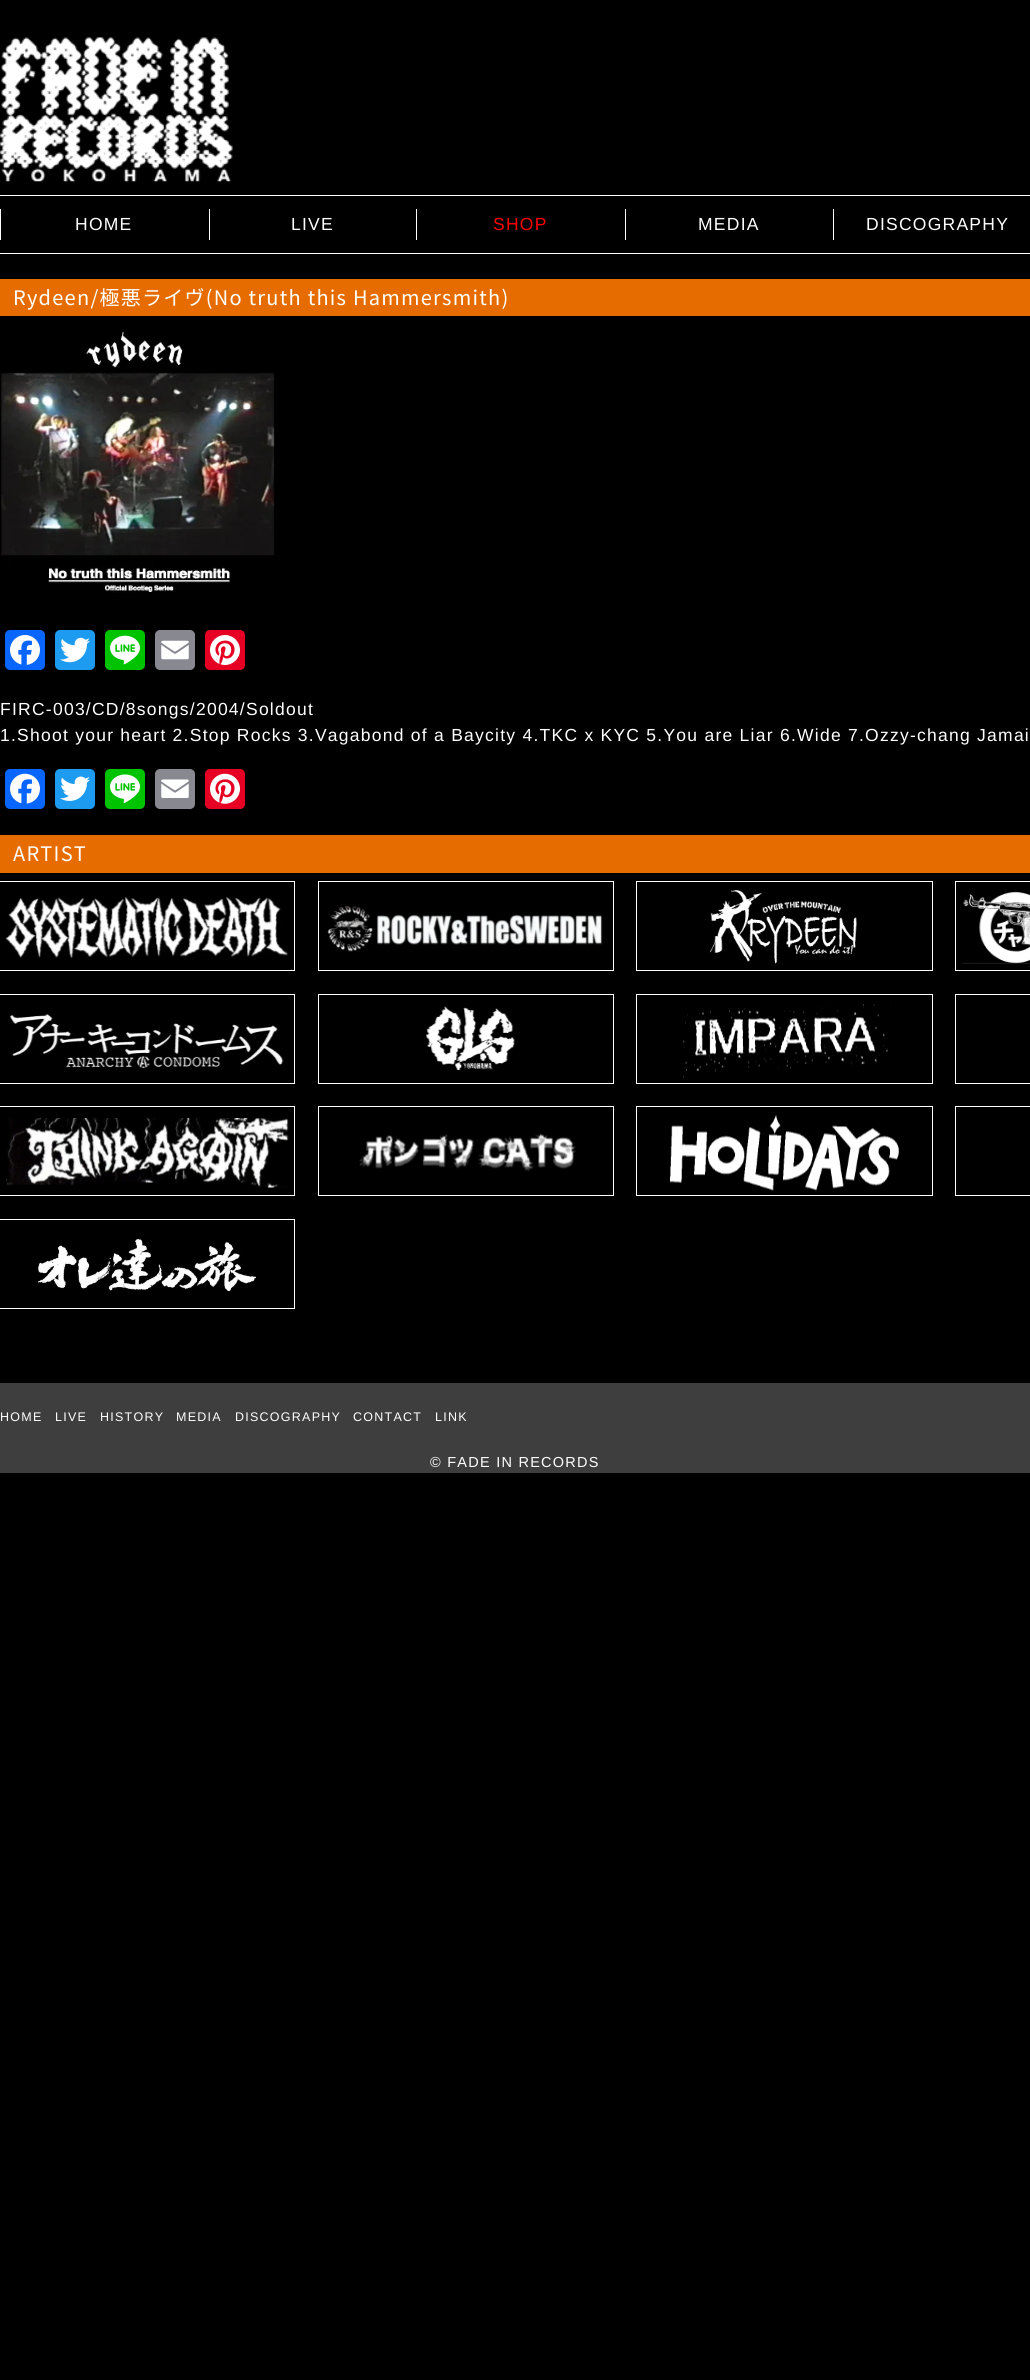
#include <cairo.h>
#include <math.h>
#include <stddef.h>

typedef struct { double x, y; const char *s; } line_t;
typedef struct { double x, y, w, h; unsigned color; } box_t;

static void ink(cairo_t *ctx, unsigned color) {
    cairo_set_source_rgb(ctx, (color >> 16) / 255.0, (color >> 8 & 255) / 255.0, (color & 255) / 255.0);
}

static void write_spaced(cairo_t *ctx, double x, double y, const char *s, double letter, double word) {
    cairo_move_to(ctx, x, y);
    while (*s) {
        char ch[5] = {0};
        int n = 0;
        do ch[n++] = *s++; while ((*s & 0xC0) == 0x80);
        cairo_show_text(ctx, ch);
        cairo_rel_move_to(ctx, letter + word * (*ch == ' '), 0);
    }
}

static void round_path(cairo_t *ctx, double x, double y, double w, double h, double r) {
    cairo_new_sub_path(ctx);
    cairo_arc(ctx, x + w - r, y + h - r, r, 0, M_PI / 2);
    cairo_arc(ctx, x + r, y + h - r, r, M_PI / 2, M_PI);
    cairo_arc(ctx, x + r, y + r, r, M_PI, 1.5 * M_PI);
    cairo_arc(ctx, x + w - r, y + r, r, 1.5 * M_PI, 2 * M_PI);
    cairo_close_path(ctx);
}

static void paste(cairo_t *ctx, const char *path, double x, double y, double w, double h) {
    cairo_surface_t *image = cairo_image_surface_create_from_png(path);
    cairo_save(ctx);
    cairo_set_source_surface(ctx, image, x, y);
    cairo_rectangle(ctx, x, y, w, h);
    cairo_fill(ctx);
    cairo_restore(ctx);
    cairo_surface_destroy(image);
}

int main(void) {
    cairo_surface_t *surface = cairo_image_surface_create(CAIRO_FORMAT_RGB24, 1030, 2380);
    cairo_t *ctx = cairo_create(surface);
    cairo_font_options_t *options = cairo_font_options_create();
    cairo_font_options_set_hint_metrics(options, CAIRO_HINT_METRICS_OFF);
    cairo_font_options_set_hint_style(options, CAIRO_HINT_STYLE_NONE);
    cairo_set_font_options(ctx, options);
    cairo_set_miter_limit(ctx, 4);
    ink(ctx, 0x000000);
    cairo_paint(ctx);
    paste(ctx, "media/1.png", 0, 37, 233, 145);
    {
        static const box_t items[] = {
            {0, 195, 1030, 1, 0xFFFFFF},
            {0, 253, 1030, 1, 0xFFFFFF},
            {0, 209, 1, 31, 0xFFFFFF},
        };
        for (size_t i = 0; i < sizeof items / sizeof *items; i++) {
            ink(ctx, items[i].color);
            cairo_rectangle(ctx, items[i].x, items[i].y, items[i].w, items[i].h);
            cairo_fill(ctx);
        }
    }
    cairo_select_font_face(ctx, "Liberation Sans", CAIRO_FONT_SLANT_NORMAL, CAIRO_FONT_WEIGHT_NORMAL);
    cairo_set_font_size(ctx, 17.5);
    write_spaced(ctx, 75, 230, "HOME", 1.25, 0);
    cairo_rectangle(ctx, 209, 209, 1, 31);
    cairo_fill(ctx);
    write_spaced(ctx, 291, 230, "LIVE", 1.25, 0);
    cairo_rectangle(ctx, 416, 209, 1, 31);
    cairo_fill(ctx);
    ink(ctx, 0xFF0000);
    write_spaced(ctx, 493, 230, "SHOP", 1.25, 0);
    ink(ctx, 0xFFFFFF);
    cairo_rectangle(ctx, 625, 209, 1, 31);
    cairo_fill(ctx);
    write_spaced(ctx, 698, 230, "MEDIA", 1.25, 0);
    cairo_rectangle(ctx, 833, 209, 1, 31);
    cairo_fill(ctx);
    write_spaced(ctx, 866, 230, "DISCOGRAPHY", 1.25, 0);
    ink(ctx, 0xE66C00);
    cairo_rectangle(ctx, 0, 279, 1030, 37);
    cairo_fill(ctx);
    cairo_select_font_face(ctx, "Noto Sans JP Thin", CAIRO_FONT_SLANT_NORMAL, CAIRO_FONT_WEIGHT_NORMAL);
    cairo_set_font_size(ctx, 20);
    ink(ctx, 0xFFFFFF);
    write_spaced(ctx, 13, 305, "Rydeen/極悪ライヴ(No truth this Hammersmith)", 1.25, 0);
    paste(ctx, "media/2.png", 0, 331, 275, 262);
    ink(ctx, 0x0866FF);
    round_path(ctx, 5, 630, 40, 40, 5);
    cairo_fill(ctx);
    paste(ctx, "media/3.png", 10, 635, 30, 30);
    ink(ctx, 0x1D9BF0);
    round_path(ctx, 55, 630, 40, 40, 5);
    cairo_fill(ctx);
    paste(ctx, "media/4.png", 60, 637, 30, 26);
    ink(ctx, 0x00C300);
    round_path(ctx, 105, 630, 40, 40, 5);
    cairo_fill(ctx);
    paste(ctx, "media/5.png", 110, 635, 30, 30);
    ink(ctx, 0x888990);
    round_path(ctx, 155, 630, 40, 40, 5);
    cairo_fill(ctx);
    paste(ctx, "media/6.png", 161, 640, 28, 20);
    ink(ctx, 0xE60023);
    round_path(ctx, 205, 630, 40, 40, 5);
    cairo_fill(ctx);
    paste(ctx, "media/7.png", 210, 635, 30, 30);
    cairo_select_font_face(ctx, "Liberation Sans", CAIRO_FONT_SLANT_NORMAL, CAIRO_FONT_WEIGHT_NORMAL);
    cairo_set_font_size(ctx, 17.5);
    ink(ctx, 0xFFFFFF);
    write_spaced(ctx, 0, 715, "FIRC-003/CD/8songs/2004/Soldout", 1.25, 0);
    write_spaced(ctx, 0, 741, "1.Shoot your heart 2.Stop Rocks 3.Vagabond of a Baycity 4.TKC x KYC 5.You are Liar 6.Wide 7.Ozzy-chang Jamai", 1.25, 0);
    ink(ctx, 0x0866FF);
    round_path(ctx, 5, 769, 40, 40, 5);
    cairo_fill(ctx);
    paste(ctx, "media/8.png", 10, 773, 30, 31);
    ink(ctx, 0x1D9BF0);
    round_path(ctx, 55, 769, 40, 40, 5);
    cairo_fill(ctx);
    paste(ctx, "media/9.png", 60, 776, 30, 25);
    ink(ctx, 0x00C300);
    round_path(ctx, 105, 769, 40, 40, 5);
    cairo_fill(ctx);
    paste(ctx, "media/10.png", 110, 774, 30, 29);
    ink(ctx, 0x888990);
    round_path(ctx, 155, 769, 40, 40, 5);
    cairo_fill(ctx);
    paste(ctx, "media/11.png", 161, 779, 28, 19);
    ink(ctx, 0xE60023);
    round_path(ctx, 205, 769, 40, 40, 5);
    cairo_fill(ctx);
    paste(ctx, "media/12.png", 210, 773, 30, 31);
    ink(ctx, 0xE66C00);
    cairo_rectangle(ctx, 0, 835, 1030, 38);
    cairo_fill(ctx);
    cairo_select_font_face(ctx, "Noto Sans JP Thin", CAIRO_FONT_SLANT_NORMAL, CAIRO_FONT_WEIGHT_NORMAL);
    cairo_set_font_size(ctx, 20);
    ink(ctx, 0xFFFFFF);
    write_spaced(ctx, 13, 861, "ARTIST", 1.25, 0);
    cairo_rectangle(ctx, -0.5, 881.5, 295, 89);
    cairo_set_line_width(ctx, 1);
    cairo_stroke(ctx);
    paste(ctx, "media/13.png", 6, 897, 283, 62);
    cairo_rectangle(ctx, 318.5, 881.5, 295, 89);
    cairo_stroke(ctx);
    paste(ctx, "media/14.png", 327, 906, 276, 46);
    cairo_rectangle(ctx, 636.5, 881.5, 296, 89);
    cairo_stroke(ctx);
    paste(ctx, "media/15.png", 710, 890, 147, 74);
    cairo_rectangle(ctx, 955.5, 881.5, 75, 89);
    cairo_stroke(ctx);
    paste(ctx, "media/16.png", 962, 892, 68, 72);
    cairo_rectangle(ctx, -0.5, 994.5, 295, 89);
    cairo_stroke(ctx);
    paste(ctx, "media/17.png", 9, 1014, 275, 55);
    cairo_rectangle(ctx, 318.5, 994.5, 295, 89);
    cairo_stroke(ctx);
    paste(ctx, "media/18.png", 426, 1006, 89, 65);
    cairo_rectangle(ctx, 636.5, 994.5, 296, 89);
    cairo_stroke(ctx);
    paste(ctx, "media/19.png", 682, 1004, 209, 74);
    cairo_rectangle(ctx, 955.5, 994.5, 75, 89);
    cairo_stroke(ctx);
    cairo_rectangle(ctx, -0.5, 1106.5, 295, 89);
    cairo_stroke(ctx);
    paste(ctx, "media/20.png", 6, 1118, 283, 70);
    cairo_rectangle(ctx, 318.5, 1106.5, 295, 89);
    cairo_stroke(ctx);
    paste(ctx, "media/21.png", 359, 1133, 217, 39);
    cairo_rectangle(ctx, 636.5, 1106.5, 296, 89);
    cairo_stroke(ctx);
    paste(ctx, "media/22.png", 670, 1114, 229, 77);
    cairo_rectangle(ctx, 955.5, 1106.5, 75, 89);
    cairo_stroke(ctx);
    cairo_rectangle(ctx, -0.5, 1219.5, 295, 89);
    cairo_stroke(ctx);
    paste(ctx, "media/23.png", 38, 1239, 219, 52);
    ink(ctx, 0x3E3E3E);
    cairo_rectangle(ctx, 0, 1383, 1030, 90);
    cairo_fill(ctx);
    cairo_select_font_face(ctx, "Liberation Sans", CAIRO_FONT_SLANT_NORMAL, CAIRO_FONT_WEIGHT_NORMAL);
    cairo_set_font_size(ctx, 12.5);
    ink(ctx, 0xFFFFFF);
    {
        static const line_t items[] = {
            {0, 1421, "HOME"},
            {55, 1421, "LIVE"},
            {100, 1421, "HISTORY"},
            {176, 1421, "MEDIA"},
            {235, 1421, "DISCOGRAPHY"},
            {353, 1421, "CONTACT"},
            {435, 1421, "LINK"},
        };
        for (size_t i = 0; i < sizeof items / sizeof *items; i++) {
            write_spaced(ctx, items[i].x, items[i].y, items[i].s, 1.25, 0);
        }
    }
    cairo_set_font_size(ctx, 14.5);
    write_spaced(ctx, 430, 1467, "© FADE IN RECORDS", 1.25, 0);
    cairo_surface_write_to_png(surface, "image.png");
    cairo_font_options_destroy(options);
    cairo_destroy(ctx);
    cairo_surface_destroy(surface);
    return 0;
}
